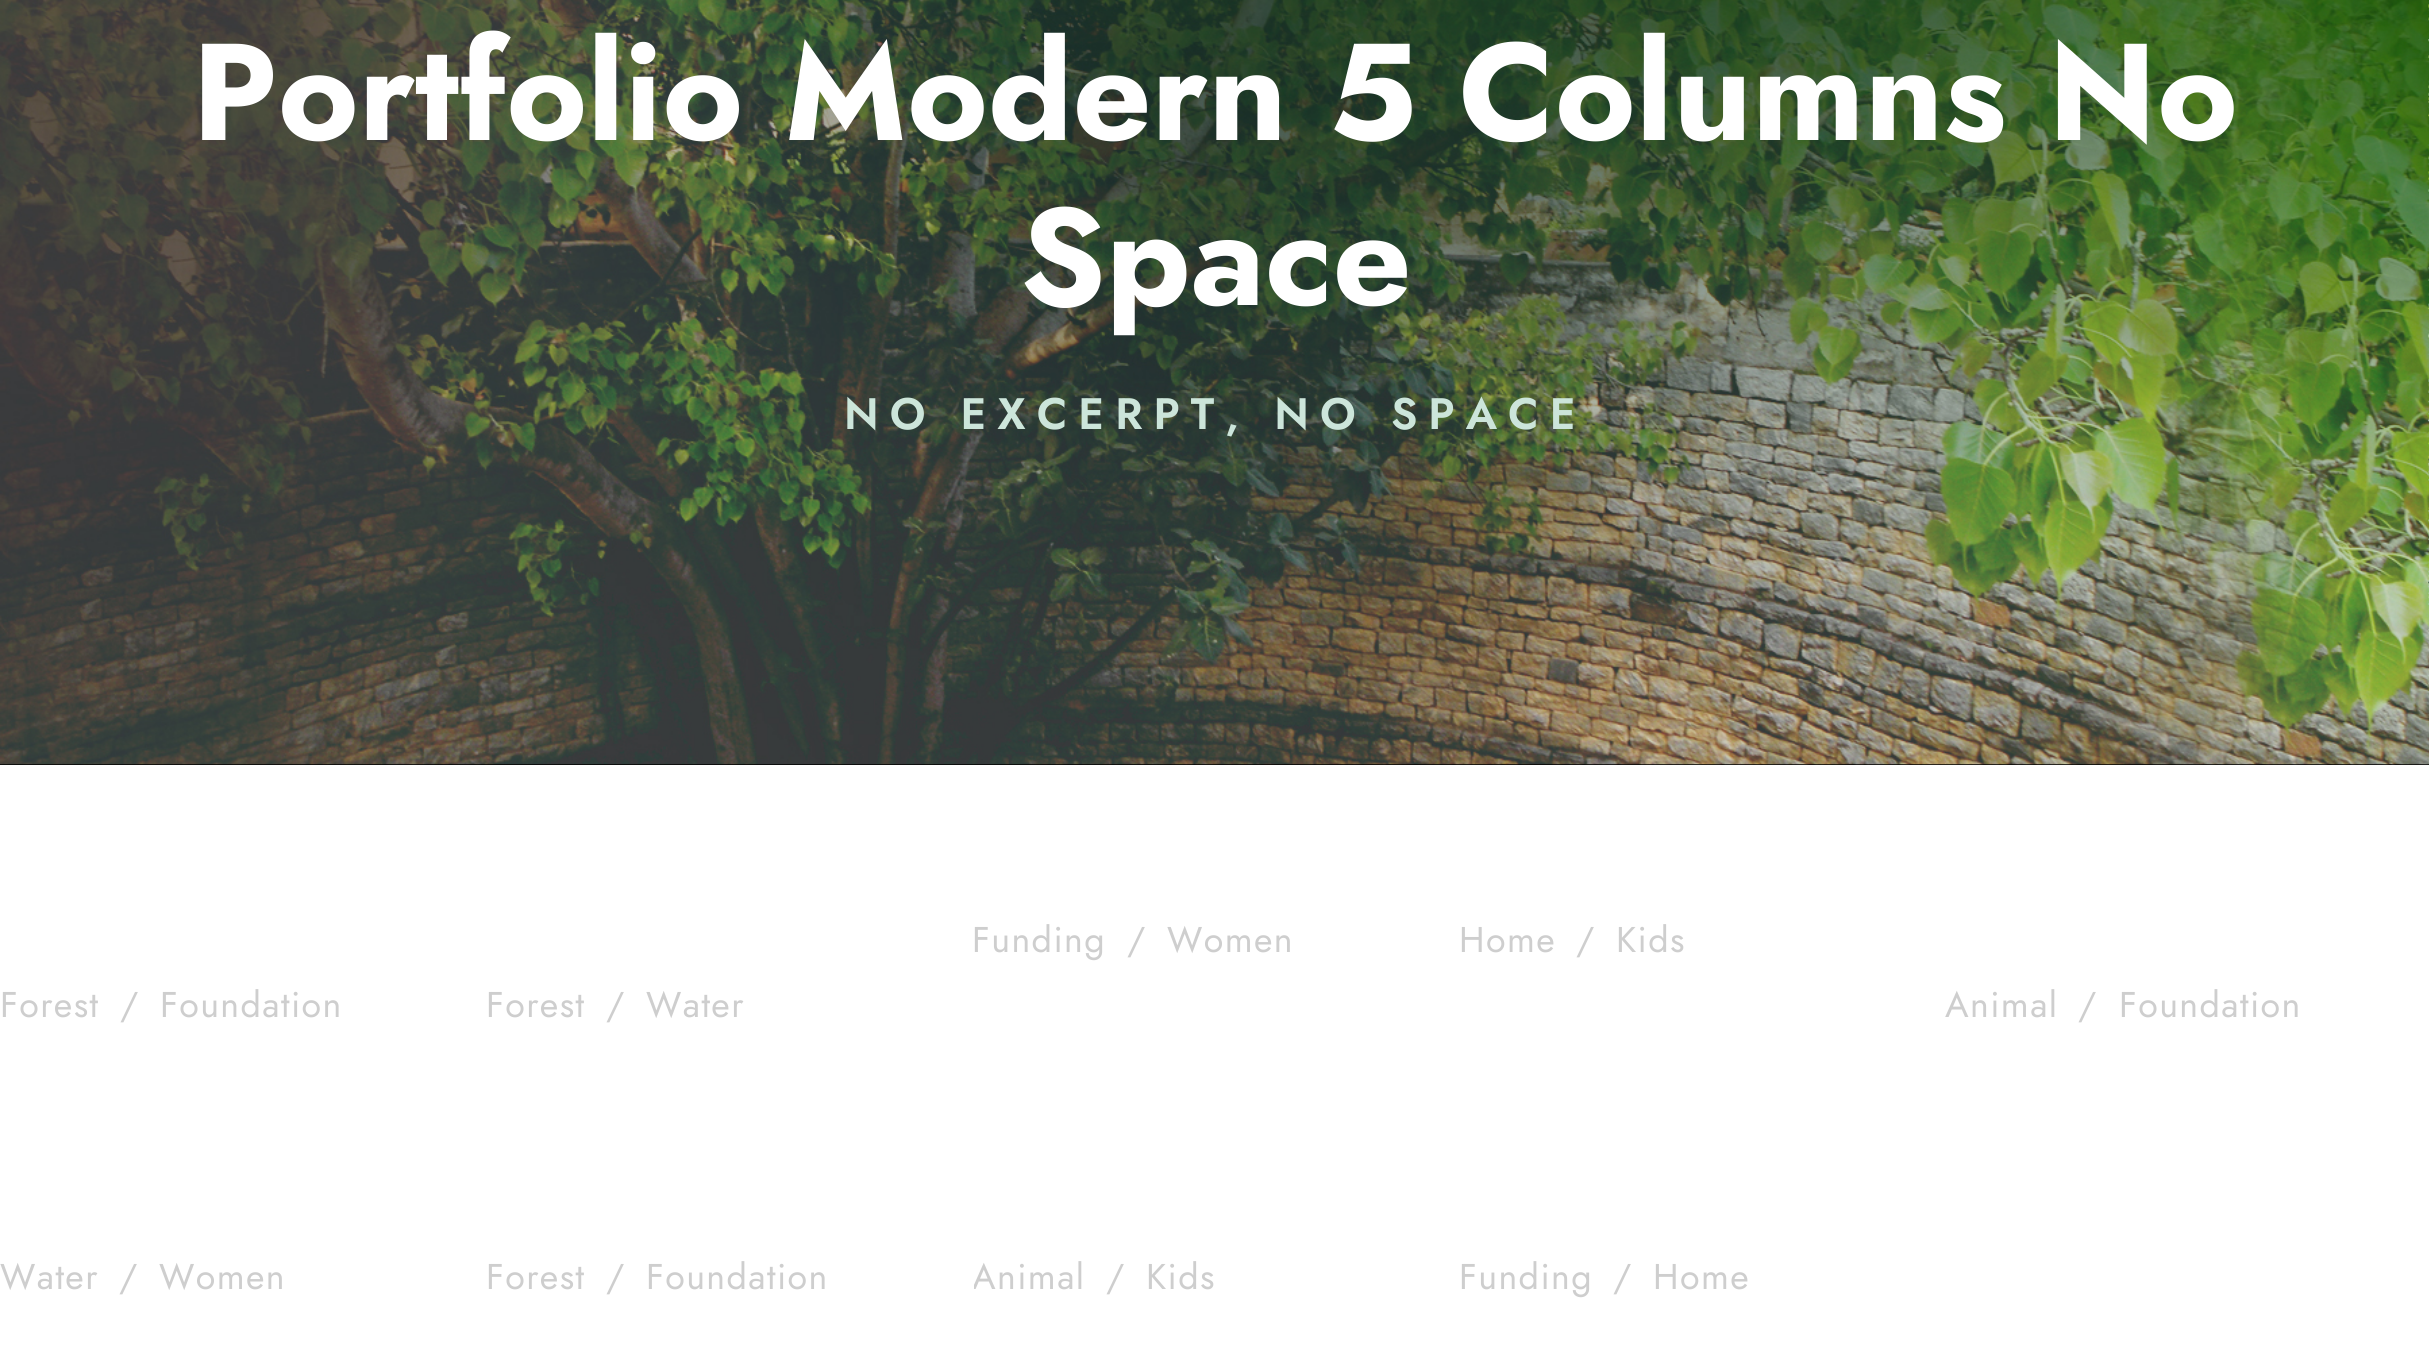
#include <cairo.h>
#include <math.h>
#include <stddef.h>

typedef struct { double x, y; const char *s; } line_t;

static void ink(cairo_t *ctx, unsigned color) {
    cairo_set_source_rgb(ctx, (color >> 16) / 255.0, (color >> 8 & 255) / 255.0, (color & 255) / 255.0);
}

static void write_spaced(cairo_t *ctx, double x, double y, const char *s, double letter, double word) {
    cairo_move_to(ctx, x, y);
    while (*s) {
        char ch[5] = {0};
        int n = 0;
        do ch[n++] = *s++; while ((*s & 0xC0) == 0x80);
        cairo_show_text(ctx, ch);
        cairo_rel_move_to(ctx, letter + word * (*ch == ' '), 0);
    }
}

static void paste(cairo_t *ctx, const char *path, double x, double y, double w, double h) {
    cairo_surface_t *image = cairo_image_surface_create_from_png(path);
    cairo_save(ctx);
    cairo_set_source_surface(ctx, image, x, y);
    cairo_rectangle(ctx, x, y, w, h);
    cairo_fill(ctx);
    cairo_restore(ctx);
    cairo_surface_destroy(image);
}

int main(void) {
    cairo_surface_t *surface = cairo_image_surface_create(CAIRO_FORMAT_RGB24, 2429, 1372);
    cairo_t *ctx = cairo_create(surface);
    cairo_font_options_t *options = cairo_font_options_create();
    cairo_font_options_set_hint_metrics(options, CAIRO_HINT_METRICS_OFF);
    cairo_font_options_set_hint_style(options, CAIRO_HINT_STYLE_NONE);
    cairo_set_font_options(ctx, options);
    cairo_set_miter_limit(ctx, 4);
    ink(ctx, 0xFFFFFF);
    cairo_paint(ctx);
    ink(ctx, 0x000000);
    cairo_rectangle(ctx, 0, 764, 2429, 1);
    cairo_fill(ctx);
    paste(ctx, "media/1.png", 0, 0, 2429, 765);
    cairo_select_font_face(ctx, "Jost", CAIRO_FONT_SLANT_NORMAL, CAIRO_FONT_WEIGHT_BOLD);
    cairo_set_font_size(ctx, 137.5);
    ink(ctx, 0xFFFFFF);
    cairo_move_to(ctx, 192, 140);
    cairo_show_text(ctx, "Portfolio Modern 5 Columns No");
    cairo_move_to(ctx, 1020, 305);
    cairo_show_text(ctx, "Space");
    cairo_select_font_face(ctx, "Jost SemiBold", CAIRO_FONT_SLANT_NORMAL, CAIRO_FONT_WEIGHT_NORMAL);
    cairo_set_font_size(ctx, 44);
    ink(ctx, 0xCCE5DA);
    write_spaced(ctx, 844, 429, "NO EXCERPT, NO SPACE", 11, 0);
    cairo_select_font_face(ctx, "Jost", CAIRO_FONT_SLANT_NORMAL, CAIRO_FONT_WEIGHT_NORMAL);
    cairo_set_font_size(ctx, 35.75);
    ink(ctx, 0xCECECE);
    {
        static const line_t items[] = {
            {972, 952, "Funding"},
            {1127, 952, "/"},
            {1167, 952, "Women"},
            {1459, 952, "Home"},
            {1576, 952, "/"},
            {1616, 952, "Kids"},
            {0, 1017, "Forest"},
            {120, 1017, "/"},
            {160, 1017, "Foundation"},
            {486, 1017, "Forest"},
            {606, 1017, "/"},
            {646, 1017, "Water"},
            {1945, 1017, "Animal"},
            {2078, 1017, "/"},
            {2119, 1017, "Foundation"},
            {0, 1289, "Water"},
            {119, 1289, "/"},
            {159, 1289, "Women"},
            {486, 1289, "Forest"},
            {606, 1289, "/"},
            {646, 1289, "Foundation"},
        };
        for (size_t i = 0; i < sizeof items / sizeof *items; i++) {
            write_spaced(ctx, items[i].x, items[i].y, items[i].s, 1.4, 0);
        }
    }
    cairo_save(ctx);
    cairo_rectangle(ctx, 974, 1037, 484, 272);
    cairo_clip(ctx);
    write_spaced(ctx, 972, 1289, "Animal", 1.4, 0);
    cairo_restore(ctx);
    {
        static const line_t items[] = {
            {1106, 1289, "/"},
            {1146, 1289, "Kids"},
            {1459, 1289, "Funding"},
            {1613, 1289, "/"},
            {1653, 1289, "Home"},
        };
        for (size_t i = 0; i < sizeof items / sizeof *items; i++) {
            write_spaced(ctx, items[i].x, items[i].y, items[i].s, 1.4, 0);
        }
    }
    cairo_surface_write_to_png(surface, "image.png");
    cairo_font_options_destroy(options);
    cairo_destroy(ctx);
    cairo_surface_destroy(surface);
    return 0;
}
